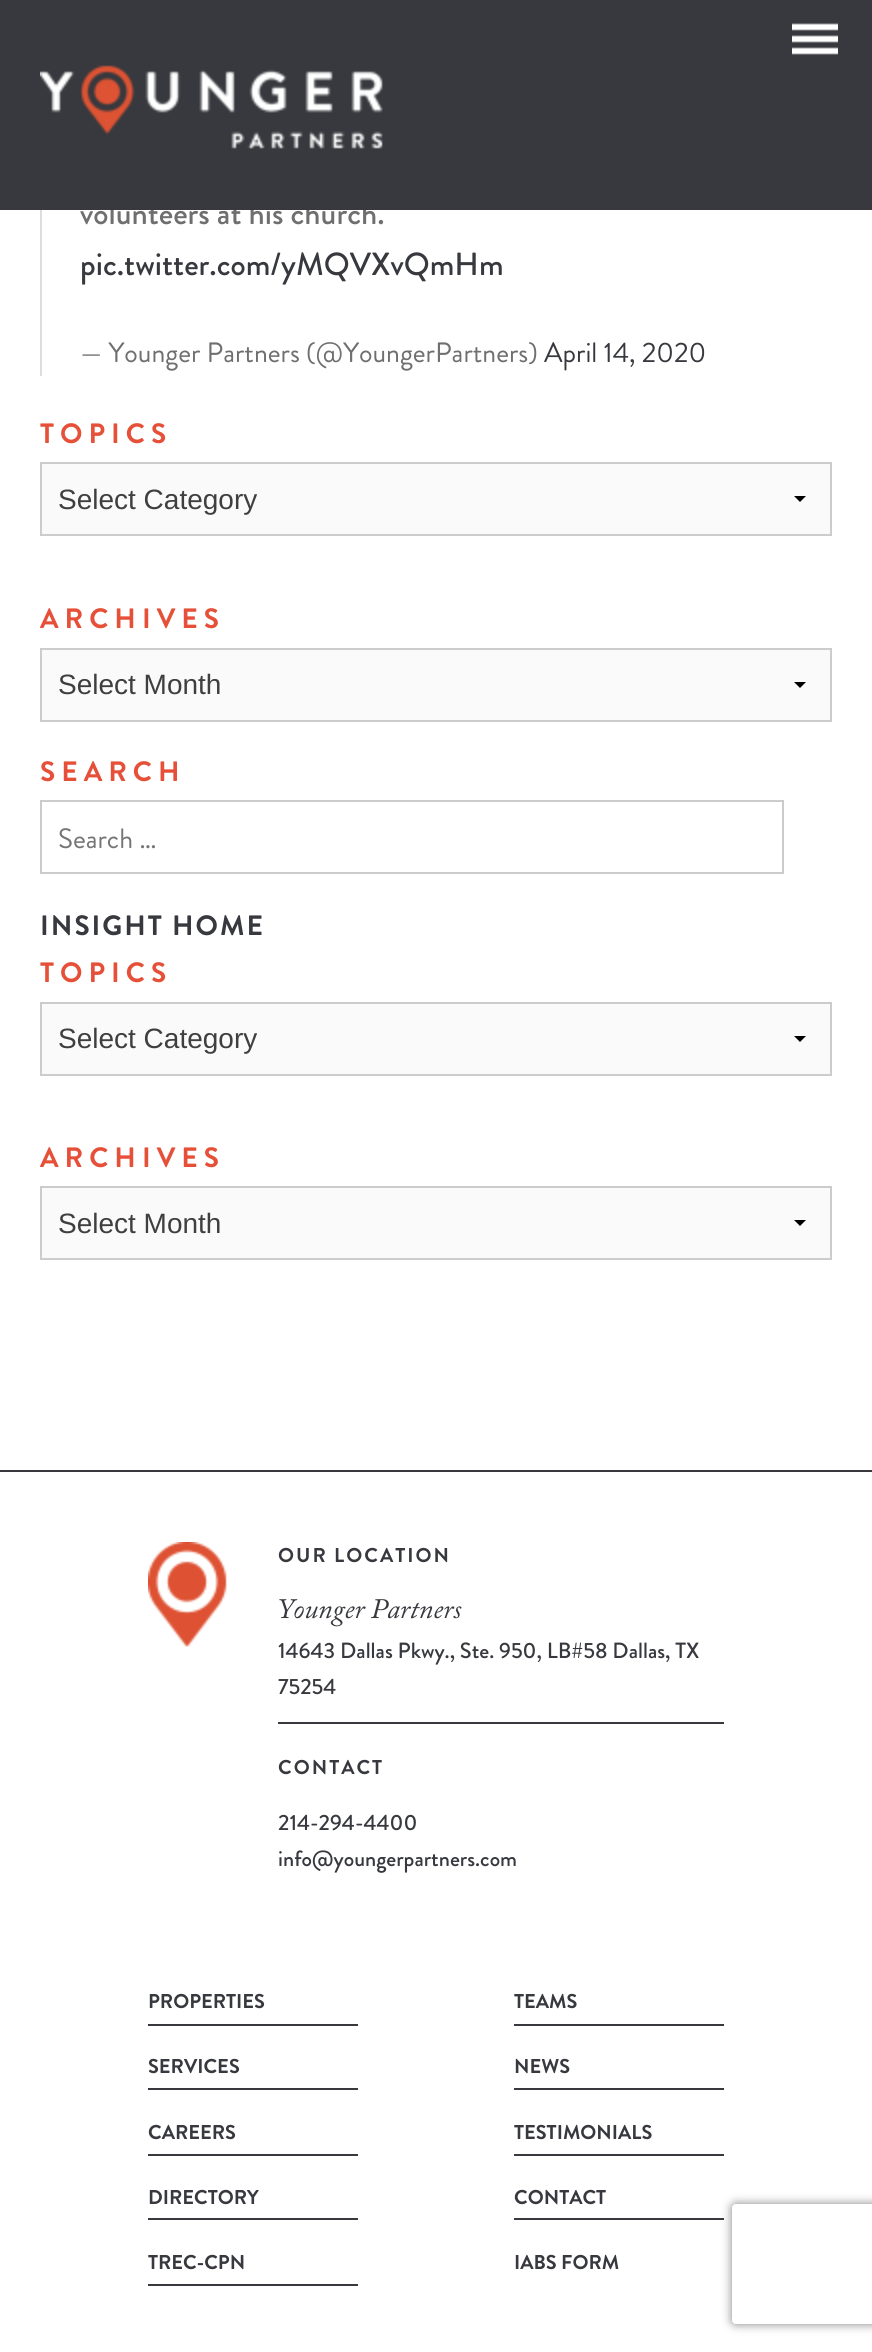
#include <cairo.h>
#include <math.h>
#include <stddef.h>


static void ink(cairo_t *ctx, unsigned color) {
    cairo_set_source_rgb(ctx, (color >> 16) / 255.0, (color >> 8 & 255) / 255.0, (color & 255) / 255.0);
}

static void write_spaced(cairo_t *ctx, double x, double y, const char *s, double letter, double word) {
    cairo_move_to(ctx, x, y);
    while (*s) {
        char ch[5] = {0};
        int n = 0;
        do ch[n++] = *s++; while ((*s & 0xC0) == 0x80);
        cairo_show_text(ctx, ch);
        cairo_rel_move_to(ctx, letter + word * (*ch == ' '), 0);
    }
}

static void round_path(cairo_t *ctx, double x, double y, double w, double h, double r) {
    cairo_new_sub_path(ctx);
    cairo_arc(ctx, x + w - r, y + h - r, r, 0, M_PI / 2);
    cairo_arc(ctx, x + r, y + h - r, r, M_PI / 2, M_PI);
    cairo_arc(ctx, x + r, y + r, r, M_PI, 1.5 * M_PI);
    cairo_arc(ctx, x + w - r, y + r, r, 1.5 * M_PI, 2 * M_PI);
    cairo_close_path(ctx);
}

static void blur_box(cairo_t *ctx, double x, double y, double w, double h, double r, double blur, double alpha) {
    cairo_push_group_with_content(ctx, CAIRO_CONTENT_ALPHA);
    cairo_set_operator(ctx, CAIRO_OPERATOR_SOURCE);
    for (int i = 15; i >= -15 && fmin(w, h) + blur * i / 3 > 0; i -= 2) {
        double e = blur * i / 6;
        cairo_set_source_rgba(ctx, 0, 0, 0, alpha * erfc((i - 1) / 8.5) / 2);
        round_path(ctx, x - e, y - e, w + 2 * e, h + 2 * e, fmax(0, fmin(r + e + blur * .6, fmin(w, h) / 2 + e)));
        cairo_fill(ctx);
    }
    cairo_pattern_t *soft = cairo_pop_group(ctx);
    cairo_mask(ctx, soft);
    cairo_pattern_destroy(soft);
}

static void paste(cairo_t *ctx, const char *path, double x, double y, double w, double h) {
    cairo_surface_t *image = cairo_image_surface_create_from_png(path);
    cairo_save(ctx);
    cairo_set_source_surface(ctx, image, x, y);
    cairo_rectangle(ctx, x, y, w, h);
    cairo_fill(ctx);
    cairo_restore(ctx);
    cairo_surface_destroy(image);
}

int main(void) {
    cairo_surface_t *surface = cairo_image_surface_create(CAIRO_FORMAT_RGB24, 872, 2352);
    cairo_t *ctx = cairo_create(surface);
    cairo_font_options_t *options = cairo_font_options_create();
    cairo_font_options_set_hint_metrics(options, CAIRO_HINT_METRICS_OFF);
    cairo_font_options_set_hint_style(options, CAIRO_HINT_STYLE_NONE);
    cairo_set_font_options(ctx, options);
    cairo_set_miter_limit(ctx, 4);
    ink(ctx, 0xFFFFFF);
    cairo_paint(ctx);
    cairo_select_font_face(ctx, "Brandon Grotesque Medium", CAIRO_FONT_SLANT_NORMAL, CAIRO_FONT_WEIGHT_NORMAL);
    cairo_set_font_size(ctx, 32);
    ink(ctx, 0x6F6F6F);
    cairo_move_to(ctx, 80, 224);
    cairo_show_text(ctx, "volunteers at his church.");
    ink(ctx, 0x37393E);
    cairo_rectangle(ctx, 0, 0, 872, 210);
    cairo_fill(ctx);
    paste(ctx, "media/1.png", 792, 23, 46, 32);
    paste(ctx, "media/2.png", 40, 65, 343, 84);
    ink(ctx, 0xDDDDDD);
    cairo_rectangle(ctx, 40, 210, 2, 166);
    cairo_fill(ctx);
    ink(ctx, 0x37393E);
    cairo_move_to(ctx, 80, 275);
    cairo_show_text(ctx, "pic.twitter.com/yMQVXvQmHm");
    cairo_select_font_face(ctx, "Brandon Grotesque", CAIRO_FONT_SLANT_NORMAL, CAIRO_FONT_WEIGHT_NORMAL);
    cairo_set_font_size(ctx, 28);
    ink(ctx, 0x6F6F6F);
    cairo_move_to(ctx, 80, 362);
    cairo_show_text(ctx, "— Younger Partners (@YoungerPartners)");
    ink(ctx, 0x37393E);
    cairo_move_to(ctx, 544, 362);
    cairo_show_text(ctx, "April 14, 2020");
    cairo_select_font_face(ctx, "Brandon Grotesque", CAIRO_FONT_SLANT_NORMAL, CAIRO_FONT_WEIGHT_BOLD);
    ink(ctx, 0xE65039);
    write_spaced(ctx, 40, 443, "TOPICS", 6, 0);
    ink(ctx, 0xFAFAFA);
    cairo_rectangle(ctx, 42, 464, 788, 70);
    cairo_fill(ctx);
    ink(ctx, 0x000000);
    cairo_new_path(ctx);
    cairo_move_to(ctx, 806, 496);
    cairo_line_to(ctx, 800, 502);
    cairo_line_to(ctx, 794, 496);
    cairo_close_path(ctx);
    cairo_fill(ctx);
    cairo_rectangle(ctx, 41, 463, 790, 72);
    ink(ctx, 0xCCCCCC);
    cairo_stroke(ctx);
    cairo_select_font_face(ctx, "Liberation Sans", CAIRO_FONT_SLANT_NORMAL, CAIRO_FONT_WEIGHT_NORMAL);
    ink(ctx, 0x3F3F3F);
    cairo_move_to(ctx, 58, 509);
    cairo_show_text(ctx, "Select Category");
    cairo_select_font_face(ctx, "Brandon Grotesque", CAIRO_FONT_SLANT_NORMAL, CAIRO_FONT_WEIGHT_BOLD);
    ink(ctx, 0xE65039);
    write_spaced(ctx, 40, 628, "ARCHIVES", 6, 0);
    ink(ctx, 0xFAFAFA);
    cairo_rectangle(ctx, 42, 650, 788, 70);
    cairo_fill(ctx);
    ink(ctx, 0x000000);
    cairo_new_path(ctx);
    cairo_move_to(ctx, 806, 682);
    cairo_line_to(ctx, 800, 688);
    cairo_line_to(ctx, 794, 682);
    cairo_close_path(ctx);
    cairo_fill(ctx);
    cairo_rectangle(ctx, 41, 649, 790, 72);
    ink(ctx, 0xCCCCCC);
    cairo_stroke(ctx);
    cairo_select_font_face(ctx, "Liberation Sans", CAIRO_FONT_SLANT_NORMAL, CAIRO_FONT_WEIGHT_NORMAL);
    ink(ctx, 0x3F3F3F);
    cairo_move_to(ctx, 58, 694);
    cairo_show_text(ctx, "Select Month");
    cairo_select_font_face(ctx, "Brandon Grotesque", CAIRO_FONT_SLANT_NORMAL, CAIRO_FONT_WEIGHT_BOLD);
    ink(ctx, 0xE65039);
    write_spaced(ctx, 40, 781, "SEARCH", 6, 0);
    cairo_rectangle(ctx, 41, 801, 742, 72);
    ink(ctx, 0xCCCCCC);
    cairo_stroke(ctx);
    cairo_select_font_face(ctx, "Brandon Grotesque", CAIRO_FONT_SLANT_NORMAL, CAIRO_FONT_WEIGHT_NORMAL);
    ink(ctx, 0x757575);
    cairo_move_to(ctx, 58, 848);
    cairo_show_text(ctx, "Search …");
    cairo_select_font_face(ctx, "Brandon Grotesque", CAIRO_FONT_SLANT_NORMAL, CAIRO_FONT_WEIGHT_BOLD);
    ink(ctx, 0x37393E);
    write_spaced(ctx, 40, 935, "INSIGHT HOME", 2, 0);
    ink(ctx, 0xE65039);
    write_spaced(ctx, 40, 982, "TOPICS", 6, 0);
    ink(ctx, 0xFAFAFA);
    cairo_rectangle(ctx, 42, 1004, 788, 70);
    cairo_fill(ctx);
    ink(ctx, 0x000000);
    cairo_new_path(ctx);
    cairo_move_to(ctx, 806, 1036);
    cairo_line_to(ctx, 800, 1042);
    cairo_line_to(ctx, 794, 1036);
    cairo_close_path(ctx);
    cairo_fill(ctx);
    cairo_rectangle(ctx, 41, 1003, 790, 72);
    ink(ctx, 0xCCCCCC);
    cairo_stroke(ctx);
    cairo_select_font_face(ctx, "Liberation Sans", CAIRO_FONT_SLANT_NORMAL, CAIRO_FONT_WEIGHT_NORMAL);
    ink(ctx, 0x3F3F3F);
    cairo_move_to(ctx, 58, 1048);
    cairo_show_text(ctx, "Select Category");
    cairo_select_font_face(ctx, "Brandon Grotesque", CAIRO_FONT_SLANT_NORMAL, CAIRO_FONT_WEIGHT_BOLD);
    ink(ctx, 0xE65039);
    write_spaced(ctx, 40, 1167, "ARCHIVES", 6, 0);
    ink(ctx, 0xFAFAFA);
    cairo_rectangle(ctx, 42, 1188, 788, 70);
    cairo_fill(ctx);
    ink(ctx, 0x000000);
    cairo_new_path(ctx);
    cairo_move_to(ctx, 806, 1220);
    cairo_line_to(ctx, 800, 1226);
    cairo_line_to(ctx, 794, 1220);
    cairo_close_path(ctx);
    cairo_fill(ctx);
    cairo_rectangle(ctx, 41, 1187, 790, 72);
    ink(ctx, 0xCCCCCC);
    cairo_stroke(ctx);
    cairo_select_font_face(ctx, "Liberation Sans", CAIRO_FONT_SLANT_NORMAL, CAIRO_FONT_WEIGHT_NORMAL);
    ink(ctx, 0x3F3F3F);
    cairo_move_to(ctx, 58, 1233);
    cairo_show_text(ctx, "Select Month");
    ink(ctx, 0x37393E);
    cairo_rectangle(ctx, 0, 1470, 872, 2);
    cairo_fill(ctx);
    paste(ctx, "media/3.png", 148, 1542, 230, 265);
    cairo_select_font_face(ctx, "Brandon Grotesque", CAIRO_FONT_SLANT_NORMAL, CAIRO_FONT_WEIGHT_BOLD);
    cairo_set_font_size(ctx, 20);
    write_spaced(ctx, 278, 1562, "OUR LOCATION", 2, 0);
    cairo_rectangle(ctx, 278, 1722, 446, 2);
    cairo_fill(ctx);
    cairo_select_font_face(ctx, "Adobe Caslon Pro", CAIRO_FONT_SLANT_ITALIC, CAIRO_FONT_WEIGHT_NORMAL);
    cairo_set_font_size(ctx, 28);
    cairo_move_to(ctx, 278, 1618);
    cairo_show_text(ctx, "Younger Partners");
    cairo_select_font_face(ctx, "Brandon Grotesque Medium", CAIRO_FONT_SLANT_NORMAL, CAIRO_FONT_WEIGHT_NORMAL);
    cairo_set_font_size(ctx, 22);
    cairo_move_to(ctx, 278, 1658);
    cairo_show_text(ctx, "14643 Dallas Pkwy., Ste. 950, LB#58 Dallas, TX");
    cairo_move_to(ctx, 278, 1694);
    cairo_show_text(ctx, "75254");
    cairo_select_font_face(ctx, "Brandon Grotesque", CAIRO_FONT_SLANT_NORMAL, CAIRO_FONT_WEIGHT_BOLD);
    cairo_set_font_size(ctx, 20);
    write_spaced(ctx, 278, 1774, "CONTACT", 2, 0);
    cairo_select_font_face(ctx, "Brandon Grotesque Medium", CAIRO_FONT_SLANT_NORMAL, CAIRO_FONT_WEIGHT_NORMAL);
    cairo_set_font_size(ctx, 22);
    cairo_move_to(ctx, 278, 1830);
    cairo_show_text(ctx, "214-294-4400");
    cairo_move_to(ctx, 278, 1866);
    cairo_show_text(ctx, "info@youngerpartners.com");
    cairo_rectangle(ctx, 148, 2024, 210, 2);
    cairo_fill(ctx);
    cairo_select_font_face(ctx, "Brandon Grotesque", CAIRO_FONT_SLANT_NORMAL, CAIRO_FONT_WEIGHT_BOLD);
    cairo_set_font_size(ctx, 20);
    cairo_move_to(ctx, 148, 2008);
    cairo_show_text(ctx, "PROPERTIES");
    cairo_rectangle(ctx, 514, 2024, 210, 2);
    cairo_fill(ctx);
    cairo_move_to(ctx, 514, 2008);
    cairo_show_text(ctx, "TEAMS");
    cairo_rectangle(ctx, 148, 2088, 210, 2);
    cairo_fill(ctx);
    cairo_move_to(ctx, 148, 2073);
    cairo_show_text(ctx, "SERVICES");
    cairo_rectangle(ctx, 514, 2088, 210, 2);
    cairo_fill(ctx);
    cairo_move_to(ctx, 514, 2073);
    cairo_show_text(ctx, "NEWS");
    cairo_rectangle(ctx, 148, 2154, 210, 2);
    cairo_fill(ctx);
    cairo_move_to(ctx, 148, 2139);
    cairo_show_text(ctx, "CAREERS");
    cairo_rectangle(ctx, 514, 2154, 210, 2);
    cairo_fill(ctx);
    cairo_move_to(ctx, 514, 2139);
    cairo_show_text(ctx, "TESTIMONIALS");
    cairo_rectangle(ctx, 148, 2218, 210, 2);
    cairo_fill(ctx);
    cairo_move_to(ctx, 148, 2204);
    cairo_show_text(ctx, "DIRECTORY");
    cairo_rectangle(ctx, 514, 2218, 210, 2);
    cairo_fill(ctx);
    cairo_move_to(ctx, 514, 2204);
    cairo_show_text(ctx, "CONTACT");
    cairo_rectangle(ctx, 148, 2284, 210, 2);
    cairo_fill(ctx);
    cairo_move_to(ctx, 148, 2269);
    cairo_show_text(ctx, "TREC-CPN");
    cairo_move_to(ctx, 514, 2269);
    cairo_show_text(ctx, "IABS FORM");
    cairo_save(ctx);
    cairo_set_fill_rule(ctx, CAIRO_FILL_RULE_EVEN_ODD);
    cairo_new_path(ctx);
    cairo_move_to(ctx, 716, 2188);
    cairo_line_to(ctx, 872, 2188);
    cairo_line_to(ctx, 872, 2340);
    cairo_line_to(ctx, 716, 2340);
    cairo_close_path(ctx);
    cairo_move_to(ctx, 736, 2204);
    cairo_line_to(ctx, 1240, 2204);
    cairo_curve_to(ctx, 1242, 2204, 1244, 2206, 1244, 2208);
    cairo_line_to(ctx, 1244, 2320);
    cairo_curve_to(ctx, 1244, 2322, 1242, 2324, 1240, 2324);
    cairo_line_to(ctx, 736, 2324);
    cairo_curve_to(ctx, 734, 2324, 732, 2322, 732, 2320);
    cairo_line_to(ctx, 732, 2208);
    cairo_curve_to(ctx, 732, 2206, 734, 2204, 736, 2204);
    cairo_close_path(ctx);
    cairo_clip(ctx);
    ink(ctx, 0x808080);
    blur_box(ctx, 732, 2204, 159, 120, 4, 5, 1);
    cairo_restore(ctx);
    cairo_surface_write_to_png(surface, "image.png");
    cairo_font_options_destroy(options);
    cairo_destroy(ctx);
    cairo_surface_destroy(surface);
    return 0;
}
